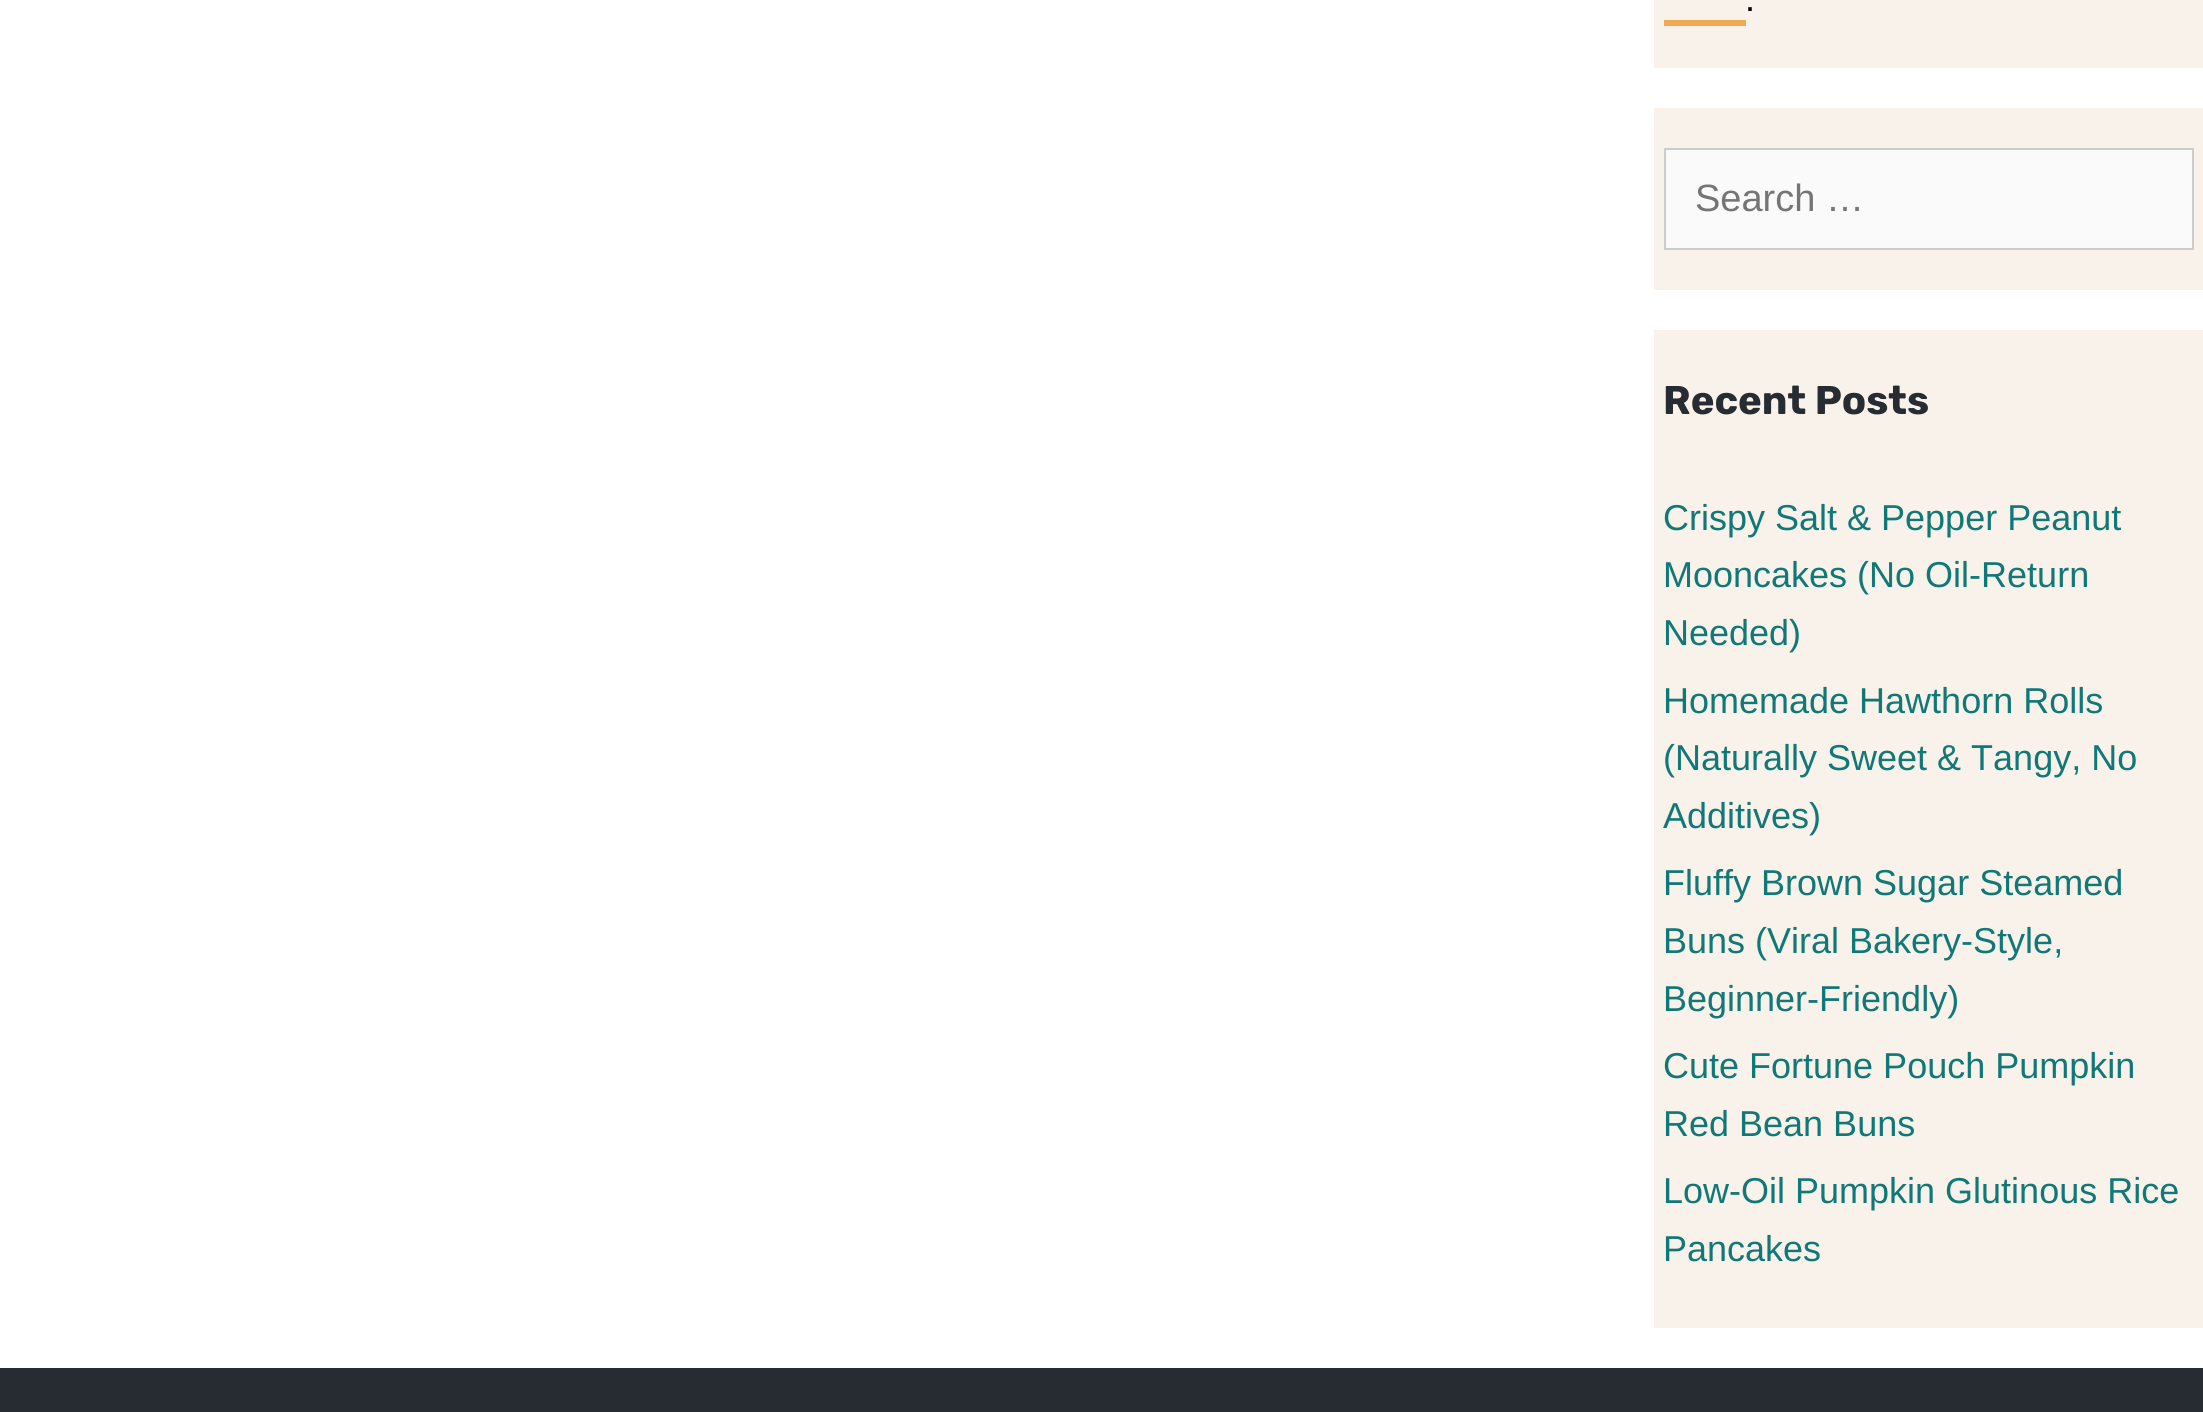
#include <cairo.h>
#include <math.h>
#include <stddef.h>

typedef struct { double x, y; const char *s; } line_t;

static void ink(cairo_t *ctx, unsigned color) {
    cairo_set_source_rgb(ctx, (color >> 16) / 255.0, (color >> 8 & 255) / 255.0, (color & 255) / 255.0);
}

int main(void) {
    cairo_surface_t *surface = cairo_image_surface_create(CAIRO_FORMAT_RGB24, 2203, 1412);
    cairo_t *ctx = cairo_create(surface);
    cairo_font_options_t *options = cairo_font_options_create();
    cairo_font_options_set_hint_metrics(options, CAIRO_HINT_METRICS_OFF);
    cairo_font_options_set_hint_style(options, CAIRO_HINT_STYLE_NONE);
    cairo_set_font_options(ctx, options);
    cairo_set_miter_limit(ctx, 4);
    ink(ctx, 0xFFFFFF);
    cairo_paint(ctx);
    ink(ctx, 0xF8F2EA);
    cairo_rectangle(ctx, 1654, 0, 549, 68);
    cairo_fill(ctx);
    cairo_select_font_face(ctx, "Liberation Sans", CAIRO_FONT_SLANT_NORMAL, CAIRO_FONT_WEIGHT_NORMAL);
    cairo_set_font_size(ctx, 36);
    ink(ctx, 0x000000);
    cairo_move_to(ctx, 1745, 11);
    cairo_show_text(ctx, ".");
    ink(ctx, 0xF2A951);
    cairo_rectangle(ctx, 1664, 20, 82, 6);
    cairo_fill(ctx);
    ink(ctx, 0xF8F2EA);
    cairo_rectangle(ctx, 1654, 108, 549, 182);
    cairo_fill(ctx);
    ink(ctx, 0xFAFAFA);
    cairo_rectangle(ctx, 1665, 149, 528, 100);
    cairo_fill_preserve(ctx);
    ink(ctx, 0xCCCCCC);
    cairo_stroke(ctx);
    cairo_set_font_size(ctx, 38);
    ink(ctx, 0x757575);
    cairo_move_to(ctx, 1695, 211);
    cairo_show_text(ctx, "Search …");
    ink(ctx, 0xF8F2EA);
    cairo_rectangle(ctx, 1654, 330, 549, 998);
    cairo_fill(ctx);
    cairo_select_font_face(ctx, "Rubik", CAIRO_FONT_SLANT_NORMAL, CAIRO_FONT_WEIGHT_BOLD);
    cairo_set_font_size(ctx, 40);
    ink(ctx, 0x272C33);
    cairo_move_to(ctx, 1663, 414);
    cairo_show_text(ctx, "Recent Posts");
    cairo_select_font_face(ctx, "Liberation Sans", CAIRO_FONT_SLANT_NORMAL, CAIRO_FONT_WEIGHT_NORMAL);
    cairo_set_font_size(ctx, 36);
    ink(ctx, 0x117878);
    {
        static const line_t items[] = {
            {1663, 530, "Crispy Salt & Pepper Peanut"},
            {1663, 587, "Mooncakes (No Oil-Return"},
            {1663, 645, "Needed)"},
            {1663, 713, "Homemade Hawthorn Rolls"},
            {1663, 770, "(Naturally Sweet & Tangy, No"},
            {1663, 828, "Additives)"},
            {1663, 895, "Fluffy Brown Sugar Steamed"},
            {1663, 953, "Buns (Viral Bakery-Style,"},
            {1663, 1011, "Beginner-Friendly)"},
            {1663, 1078, "Cute Fortune Pouch Pumpkin"},
            {1663, 1136, "Red Bean Buns"},
            {1663, 1203, "Low-Oil Pumpkin Glutinous Rice"},
            {1663, 1261, "Pancakes"},
        };
        for (size_t i = 0; i < sizeof items / sizeof *items; i++) {
            cairo_move_to(ctx, items[i].x, items[i].y);
            cairo_show_text(ctx, items[i].s);
        }
    }
    ink(ctx, 0x272C33);
    cairo_rectangle(ctx, 0, 1368, 2203, 44);
    cairo_fill(ctx);
    cairo_surface_write_to_png(surface, "image.png");
    cairo_font_options_destroy(options);
    cairo_destroy(ctx);
    cairo_surface_destroy(surface);
    return 0;
}
